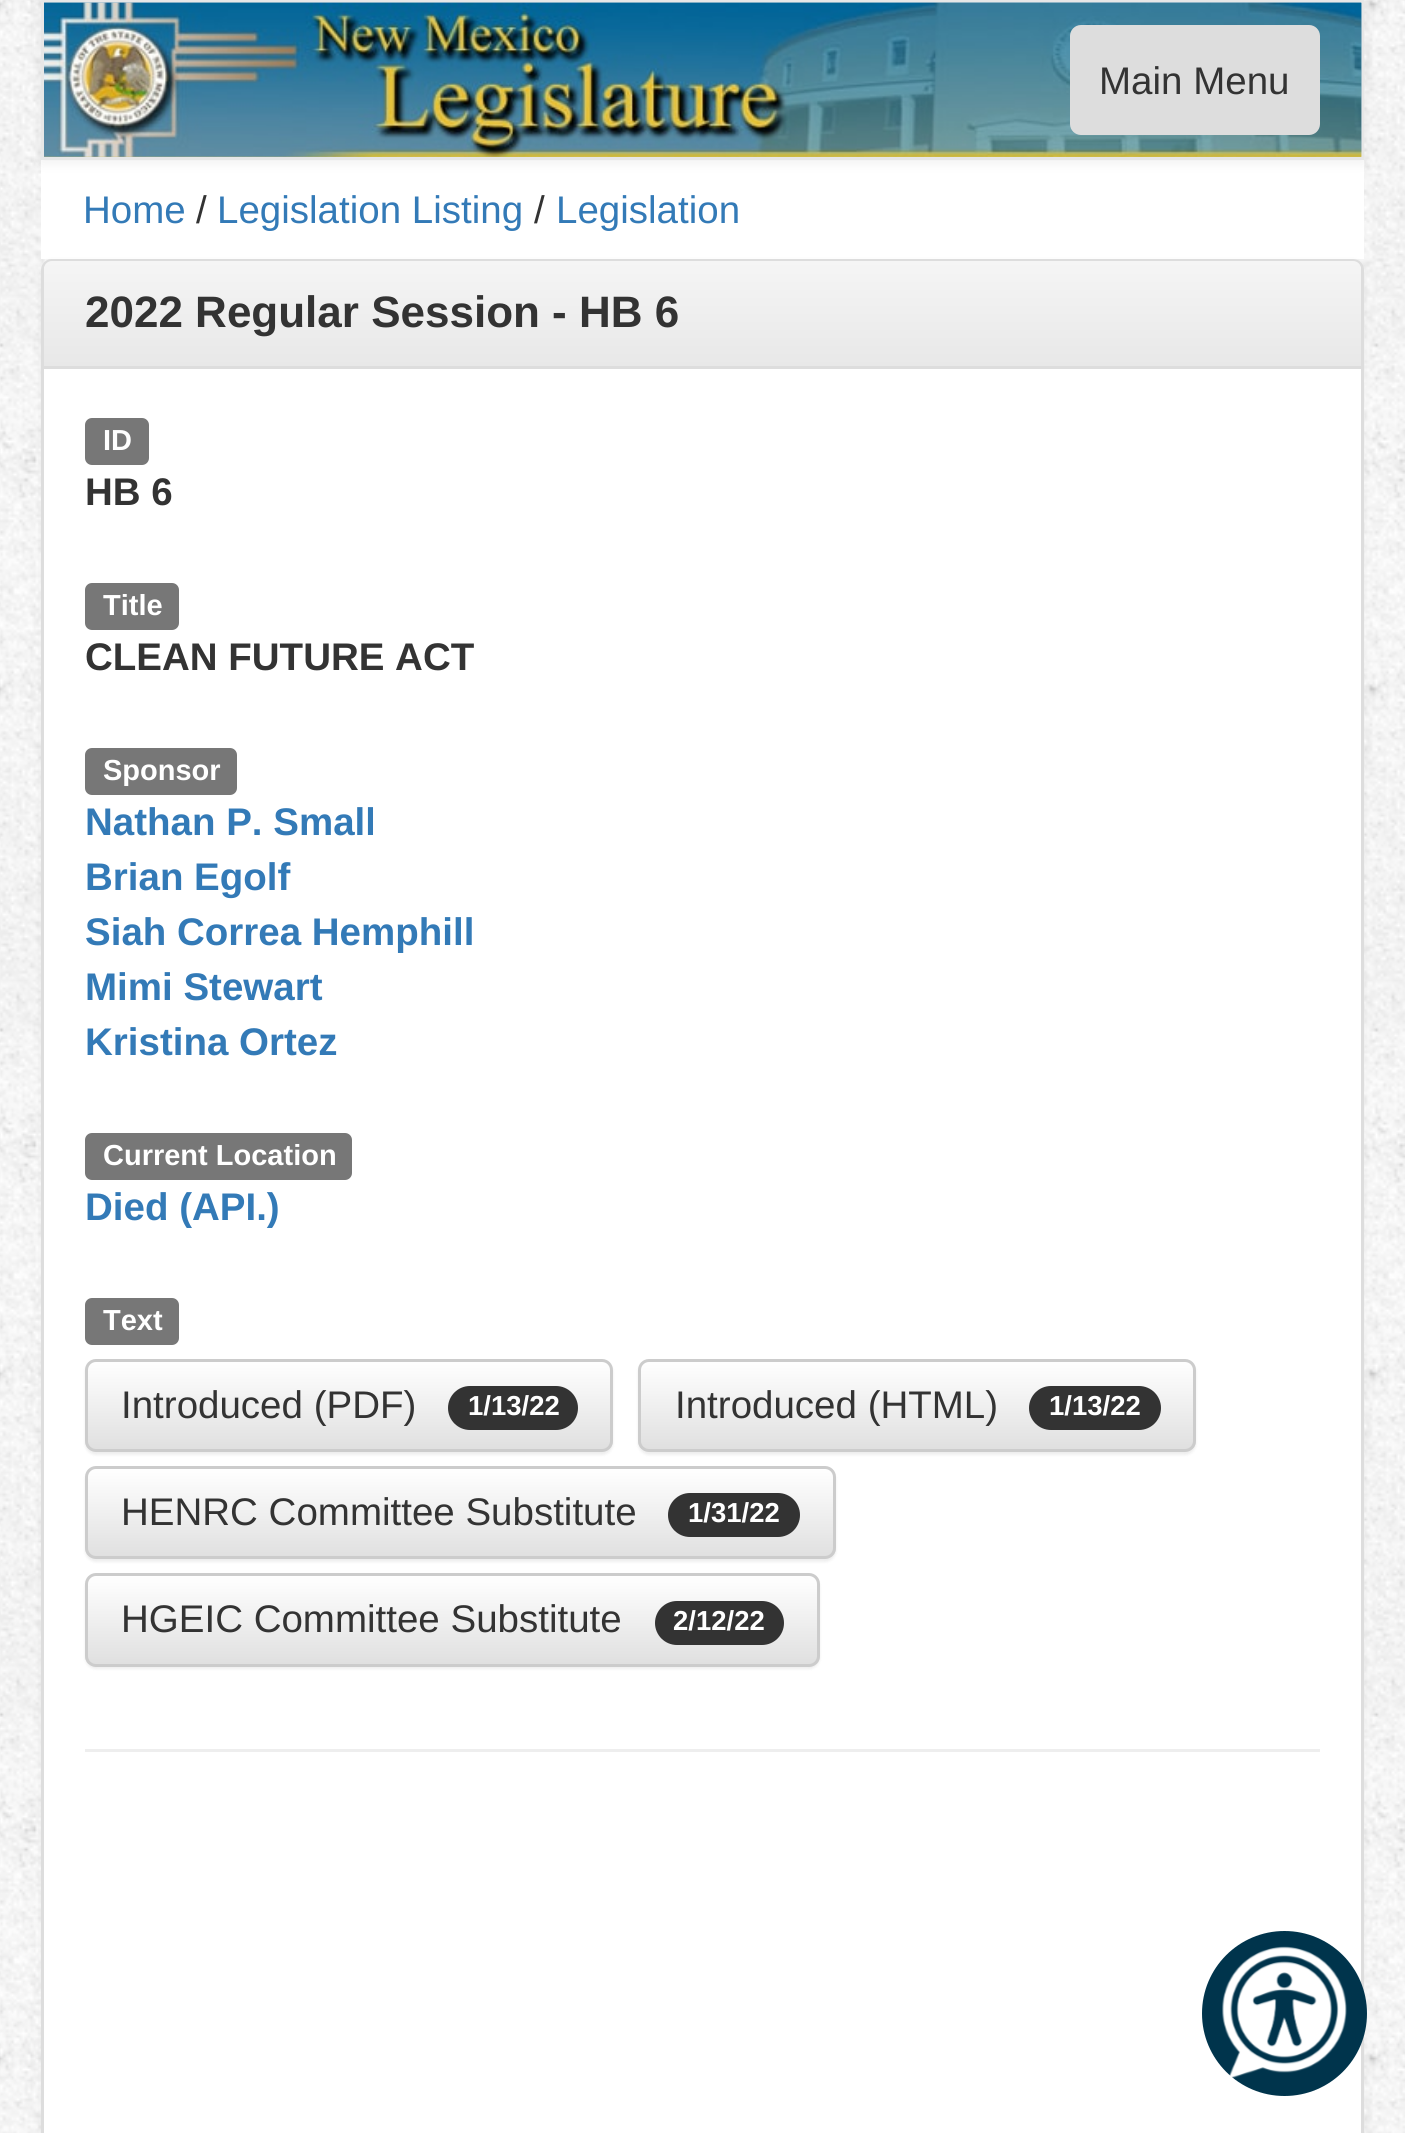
#include <cairo.h>
#include <math.h>
#include <stddef.h>

typedef struct { double x, y; const char *s; } line_t;

static void ink(cairo_t *ctx, unsigned color) {
    cairo_set_source_rgb(ctx, (color >> 16) / 255.0, (color >> 8 & 255) / 255.0, (color & 255) / 255.0);
}

static void round_path(cairo_t *ctx, double x, double y, double w, double h, double r) {
    cairo_new_sub_path(ctx);
    cairo_arc(ctx, x + w - r, y + h - r, r, 0, M_PI / 2);
    cairo_arc(ctx, x + r, y + h - r, r, M_PI / 2, M_PI);
    cairo_arc(ctx, x + r, y + r, r, M_PI, 1.5 * M_PI);
    cairo_arc(ctx, x + w - r, y + r, r, 1.5 * M_PI, 2 * M_PI);
    cairo_close_path(ctx);
}

static void blur_box(cairo_t *ctx, double x, double y, double w, double h, double r, double blur, double alpha) {
    cairo_push_group_with_content(ctx, CAIRO_CONTENT_ALPHA);
    cairo_set_operator(ctx, CAIRO_OPERATOR_SOURCE);
    for (int i = 15; i >= -15 && fmin(w, h) + blur * i / 3 > 0; i -= 2) {
        double e = blur * i / 6;
        cairo_set_source_rgba(ctx, 0, 0, 0, alpha * erfc((i - 1) / 8.5) / 2);
        round_path(ctx, x - e, y - e, w + 2 * e, h + 2 * e, fmax(0, fmin(r + e + blur * .6, fmin(w, h) / 2 + e)));
        cairo_fill(ctx);
    }
    cairo_pattern_t *soft = cairo_pop_group(ctx);
    cairo_mask(ctx, soft);
    cairo_pattern_destroy(soft);
}

static void paste(cairo_t *ctx, const char *path, double x, double y, double w, double h) {
    cairo_surface_t *image = cairo_image_surface_create_from_png(path);
    cairo_save(ctx);
    cairo_set_source_surface(ctx, image, x, y);
    cairo_rectangle(ctx, x, y, w, h);
    cairo_fill(ctx);
    cairo_restore(ctx);
    cairo_surface_destroy(image);
}

int main(void) {
    cairo_surface_t *surface = cairo_image_surface_create(CAIRO_FORMAT_RGB24, 1405, 2133);
    cairo_t *ctx = cairo_create(surface);
    cairo_font_options_t *options = cairo_font_options_create();
    cairo_font_options_set_hint_metrics(options, CAIRO_HINT_METRICS_OFF);
    cairo_font_options_set_hint_style(options, CAIRO_HINT_STYLE_NONE);
    cairo_set_font_options(ctx, options);
    cairo_set_miter_limit(ctx, 4);
    cairo_pattern_t *gradient;
    ink(ctx, 0xFFFFFF);
    cairo_paint(ctx);
    paste(ctx, "media/1.png", 0, 0, 1405, 2133);
    ink(ctx, 0xFFFFFF);
    cairo_rectangle(ctx, 41, 160, 1323, 99);
    cairo_fill(ctx);
    ink(ctx, 0x000000);
    blur_box(ctx, 41, 3, 1323, 159, 0, 7, 0.07);
    cairo_rectangle(ctx, 42.5, 1.5, 1320, 157);
    ink(ctx, 0xE7E7E7);
    cairo_set_line_width(ctx, 3);
    cairo_stroke(ctx);
    paste(ctx, "media/2.png", 44, 2, 1318, 155);
    ink(ctx, 0xDDDDDD);
    round_path(ctx, 1071.5, 26.5, 247, 107, 9.5);
    cairo_fill_preserve(ctx);
    cairo_stroke(ctx);
    cairo_select_font_face(ctx, "Liberation Sans", CAIRO_FONT_SLANT_NORMAL, CAIRO_FONT_WEIGHT_NORMAL);
    cairo_set_font_size(ctx, 38.5);
    ink(ctx, 0x333333);
    cairo_move_to(ctx, 1099, 94);
    cairo_show_text(ctx, "Main Menu");
    ink(ctx, 0x337AB7);
    cairo_move_to(ctx, 83, 223);
    cairo_show_text(ctx, "Home");
    ink(ctx, 0x333333);
    cairo_move_to(ctx, 196, 223);
    cairo_show_text(ctx, "/");
    ink(ctx, 0x337AB7);
    cairo_move_to(ctx, 217, 223);
    cairo_show_text(ctx, "Legislation Listing");
    ink(ctx, 0x333333);
    cairo_move_to(ctx, 534, 223);
    cairo_show_text(ctx, "/");
    ink(ctx, 0x337AB7);
    cairo_move_to(ctx, 556, 223);
    cairo_show_text(ctx, "Legislation");
    ink(ctx, 0x000000);
    blur_box(ctx, 41, 261, 1323, 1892, 11, 3, 0.05);
    ink(ctx, 0xFFFFFF);
    round_path(ctx, 42.5, 260.5, 1320, 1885, 9.5);
    cairo_fill_preserve(ctx);
    ink(ctx, 0xDDDDDD);
    cairo_stroke(ctx);
    gradient = cairo_pattern_create_linear(703, 261, 703, 366);
    cairo_pattern_add_color_stop_rgba(gradient, 0, 0.961, 0.961, 0.961, 1);
    cairo_pattern_add_color_stop_rgba(gradient, 1, 0.91, 0.91, 0.91, 1);
    cairo_set_source(ctx, gradient);
    cairo_pattern_destroy(gradient);
    cairo_new_path(ctx);
    cairo_move_to(ctx, 52, 261);
    cairo_line_to(ctx, 1353, 261);
    cairo_curve_to(ctx, 1357.5, 261, 1361, 264.5, 1361, 269);
    cairo_line_to(ctx, 1361, 366);
    cairo_line_to(ctx, 44, 366);
    cairo_line_to(ctx, 44, 269);
    cairo_curve_to(ctx, 44, 264.5, 47.5, 261, 52, 261);
    cairo_close_path(ctx);
    cairo_fill(ctx);
    ink(ctx, 0xDDDDDD);
    cairo_rectangle(ctx, 44, 366, 1317, 3);
    cairo_fill(ctx);
    cairo_select_font_face(ctx, "Liberation Sans", CAIRO_FONT_SLANT_NORMAL, CAIRO_FONT_WEIGHT_BOLD);
    cairo_set_font_size(ctx, 44);
    ink(ctx, 0x333333);
    cairo_move_to(ctx, 85, 327);
    cairo_show_text(ctx, "2022 Regular Session - HB 6");
    ink(ctx, 0x777777);
    round_path(ctx, 85, 418, 64, 47, 7);
    cairo_fill(ctx);
    cairo_set_font_size(ctx, 29);
    ink(ctx, 0xFFFFFF);
    cairo_move_to(ctx, 103, 450);
    cairo_show_text(ctx, "ID");
    cairo_set_font_size(ctx, 38.5);
    ink(ctx, 0x333333);
    cairo_move_to(ctx, 85, 505);
    cairo_show_text(ctx, "HB 6");
    ink(ctx, 0x777777);
    round_path(ctx, 85, 583, 94, 47, 7);
    cairo_fill(ctx);
    cairo_set_font_size(ctx, 29);
    ink(ctx, 0xFFFFFF);
    cairo_move_to(ctx, 103, 615);
    cairo_show_text(ctx, "Title");
    cairo_set_font_size(ctx, 38.5);
    ink(ctx, 0x333333);
    cairo_move_to(ctx, 85, 670);
    cairo_show_text(ctx, "CLEAN FUTURE ACT");
    ink(ctx, 0x777777);
    round_path(ctx, 85, 748, 152, 47, 7);
    cairo_fill(ctx);
    cairo_set_font_size(ctx, 29);
    ink(ctx, 0xFFFFFF);
    cairo_move_to(ctx, 103, 780);
    cairo_show_text(ctx, "Sponsor");
    cairo_set_font_size(ctx, 38.5);
    ink(ctx, 0x337AB7);
    {
        static const line_t items[] = {
            {85, 835, "Nathan P. Small"},
            {85, 890, "Brian Egolf"},
            {85, 945, "Siah Correa Hemphill"},
            {85, 1000, "Mimi Stewart"},
            {85, 1055, "Kristina Ortez"},
        };
        for (size_t i = 0; i < sizeof items / sizeof *items; i++) {
            cairo_move_to(ctx, items[i].x, items[i].y);
            cairo_show_text(ctx, items[i].s);
        }
    }
    ink(ctx, 0x777777);
    round_path(ctx, 85, 1133, 267, 47, 7);
    cairo_fill(ctx);
    cairo_set_font_size(ctx, 29);
    ink(ctx, 0xFFFFFF);
    cairo_move_to(ctx, 103, 1165);
    cairo_show_text(ctx, "Current Location");
    cairo_set_font_size(ctx, 38.5);
    ink(ctx, 0x337AB7);
    cairo_move_to(ctx, 85, 1220);
    cairo_show_text(ctx, "Died (API.)");
    ink(ctx, 0x777777);
    round_path(ctx, 85, 1298, 94, 47, 7);
    cairo_fill(ctx);
    cairo_set_font_size(ctx, 29);
    ink(ctx, 0xFFFFFF);
    cairo_move_to(ctx, 103, 1330);
    cairo_show_text(ctx, "Text");
    ink(ctx, 0x000000);
    blur_box(ctx, 85, 1361, 528, 94, 11, 1.5, 0.07);
    cairo_save(ctx);
    round_path(ctx, 85, 1359, 528, 93, 11);
    cairo_clip(ctx);
    gradient = cairo_pattern_create_linear(349, 1361, 349, 1449);
    cairo_pattern_add_color_stop_rgba(gradient, 0, 1, 1, 1, 1);
    cairo_pattern_add_color_stop_rgba(gradient, 1, 0.878, 0.878, 0.878, 1);
    cairo_set_source(ctx, gradient);
    cairo_pattern_destroy(gradient);
    cairo_rectangle(ctx, 85, 1361, 528, 88);
    cairo_fill(ctx);
    cairo_restore(ctx);
    cairo_set_source_rgba(ctx, 1, 1, 1, 0.15);
    cairo_new_path(ctx);
    cairo_move_to(ctx, 96, 1364);
    cairo_line_to(ctx, 602, 1364);
    cairo_curve_to(ctx, 607, 1364, 610, 1368, 610, 1372);
    cairo_line_to(ctx, 610, 1445);
    cairo_curve_to(ctx, 611, 1444, 611, 1442, 611, 1441);
    cairo_line_to(ctx, 611, 1369);
    cairo_curve_to(ctx, 611, 1365, 607, 1361, 603, 1361);
    cairo_line_to(ctx, 96, 1361);
    cairo_curve_to(ctx, 92, 1361, 88, 1365, 88, 1369);
    cairo_line_to(ctx, 88, 1372);
    cairo_curve_to(ctx, 88, 1368, 92, 1364, 96, 1364);
    cairo_close_path(ctx);
    cairo_fill(ctx);
    round_path(ctx, 86.5, 1360.5, 525, 90, 9.5);
    ink(ctx, 0xCCCCCC);
    cairo_stroke(ctx);
    cairo_select_font_face(ctx, "Liberation Sans", CAIRO_FONT_SLANT_NORMAL, CAIRO_FONT_WEIGHT_NORMAL);
    cairo_set_font_size(ctx, 38.5);
    ink(ctx, 0x333333);
    cairo_move_to(ctx, 121, 1418);
    cairo_show_text(ctx, "Introduced (PDF)");
    round_path(ctx, 448, 1386, 130, 44, 22);
    cairo_fill(ctx);
    cairo_select_font_face(ctx, "Liberation Sans", CAIRO_FONT_SLANT_NORMAL, CAIRO_FONT_WEIGHT_BOLD);
    cairo_set_font_size(ctx, 27.5);
    ink(ctx, 0xFFFFFF);
    cairo_move_to(ctx, 468, 1415);
    cairo_show_text(ctx, "1/13/22");
    ink(ctx, 0x000000);
    blur_box(ctx, 638, 1361, 558, 94, 11, 1.5, 0.07);
    cairo_save(ctx);
    round_path(ctx, 638, 1359, 558, 93, 11);
    cairo_clip(ctx);
    gradient = cairo_pattern_create_linear(917, 1361, 917, 1449);
    cairo_pattern_add_color_stop_rgba(gradient, 0, 1, 1, 1, 1);
    cairo_pattern_add_color_stop_rgba(gradient, 1, 0.878, 0.878, 0.878, 1);
    cairo_set_source(ctx, gradient);
    cairo_pattern_destroy(gradient);
    cairo_rectangle(ctx, 638, 1361, 558, 88);
    cairo_fill(ctx);
    cairo_restore(ctx);
    round_path(ctx, 639.5, 1360.5, 555, 90, 9.5);
    ink(ctx, 0xCCCCCC);
    cairo_stroke(ctx);
    cairo_select_font_face(ctx, "Liberation Sans", CAIRO_FONT_SLANT_NORMAL, CAIRO_FONT_WEIGHT_NORMAL);
    cairo_set_font_size(ctx, 38.5);
    ink(ctx, 0x333333);
    cairo_move_to(ctx, 675, 1418);
    cairo_show_text(ctx, "Introduced (HTML)");
    round_path(ctx, 1029, 1386, 132, 44, 22);
    cairo_fill(ctx);
    cairo_select_font_face(ctx, "Liberation Sans", CAIRO_FONT_SLANT_NORMAL, CAIRO_FONT_WEIGHT_BOLD);
    cairo_set_font_size(ctx, 27.5);
    ink(ctx, 0xFFFFFF);
    cairo_move_to(ctx, 1049, 1415);
    cairo_show_text(ctx, "1/13/22");
    ink(ctx, 0x000000);
    blur_box(ctx, 85, 1469, 751, 93, 11, 1.5, 0.07);
    cairo_save(ctx);
    round_path(ctx, 85, 1466, 751, 93, 11);
    cairo_clip(ctx);
    gradient = cairo_pattern_create_linear(461, 1469, 461, 1557);
    cairo_pattern_add_color_stop_rgba(gradient, 0, 1, 1, 1, 1);
    cairo_pattern_add_color_stop_rgba(gradient, 1, 0.878, 0.878, 0.878, 1);
    cairo_set_source(ctx, gradient);
    cairo_pattern_destroy(gradient);
    cairo_rectangle(ctx, 85, 1469, 751, 88);
    cairo_fill(ctx);
    cairo_restore(ctx);
    round_path(ctx, 86.5, 1467.5, 748, 90, 9.5);
    ink(ctx, 0xCCCCCC);
    cairo_stroke(ctx);
    cairo_select_font_face(ctx, "Liberation Sans", CAIRO_FONT_SLANT_NORMAL, CAIRO_FONT_WEIGHT_NORMAL);
    cairo_set_font_size(ctx, 38.5);
    ink(ctx, 0x333333);
    cairo_move_to(ctx, 121, 1525);
    cairo_show_text(ctx, "HENRC Committee Substitute");
    round_path(ctx, 668, 1493, 132, 44, 22);
    cairo_fill(ctx);
    cairo_select_font_face(ctx, "Liberation Sans", CAIRO_FONT_SLANT_NORMAL, CAIRO_FONT_WEIGHT_BOLD);
    cairo_set_font_size(ctx, 27.5);
    ink(ctx, 0xFFFFFF);
    cairo_move_to(ctx, 688, 1522);
    cairo_show_text(ctx, "1/31/22");
    ink(ctx, 0x000000);
    blur_box(ctx, 85, 1576, 735, 93, 11, 1.5, 0.07);
    cairo_save(ctx);
    round_path(ctx, 85, 1573, 735, 94, 11);
    cairo_clip(ctx);
    gradient = cairo_pattern_create_linear(452, 1576, 452, 1664);
    cairo_pattern_add_color_stop_rgba(gradient, 0, 1, 1, 1, 1);
    cairo_pattern_add_color_stop_rgba(gradient, 1, 0.878, 0.878, 0.878, 1);
    cairo_set_source(ctx, gradient);
    cairo_pattern_destroy(gradient);
    cairo_rectangle(ctx, 85, 1576, 735, 88);
    cairo_fill(ctx);
    cairo_restore(ctx);
    round_path(ctx, 86.5, 1574.5, 732, 91, 9.5);
    ink(ctx, 0xCCCCCC);
    cairo_stroke(ctx);
    cairo_select_font_face(ctx, "Liberation Sans", CAIRO_FONT_SLANT_NORMAL, CAIRO_FONT_WEIGHT_NORMAL);
    cairo_set_font_size(ctx, 38.5);
    ink(ctx, 0x333333);
    cairo_move_to(ctx, 121, 1632);
    cairo_show_text(ctx, "HGEIC Committee Substitute");
    round_path(ctx, 655, 1601, 129, 44, 22);
    cairo_fill(ctx);
    cairo_select_font_face(ctx, "Liberation Sans", CAIRO_FONT_SLANT_NORMAL, CAIRO_FONT_WEIGHT_BOLD);
    cairo_set_font_size(ctx, 27.5);
    ink(ctx, 0xFFFFFF);
    cairo_move_to(ctx, 673, 1630);
    cairo_show_text(ctx, "2/12/22");
    ink(ctx, 0xEEEEEE);
    cairo_rectangle(ctx, 85, 1749, 1235, 3);
    cairo_fill(ctx);
    ink(ctx, 0x00344C);
    cairo_arc(ctx, 1284.5, 2013.5, 82.5, 0, 2 * M_PI);
    cairo_fill(ctx);
    paste(ctx, "media/3.png", 1222, 1946, 125, 132);
    cairo_surface_write_to_png(surface, "image.png");
    cairo_font_options_destroy(options);
    cairo_destroy(ctx);
    cairo_surface_destroy(surface);
    return 0;
}
